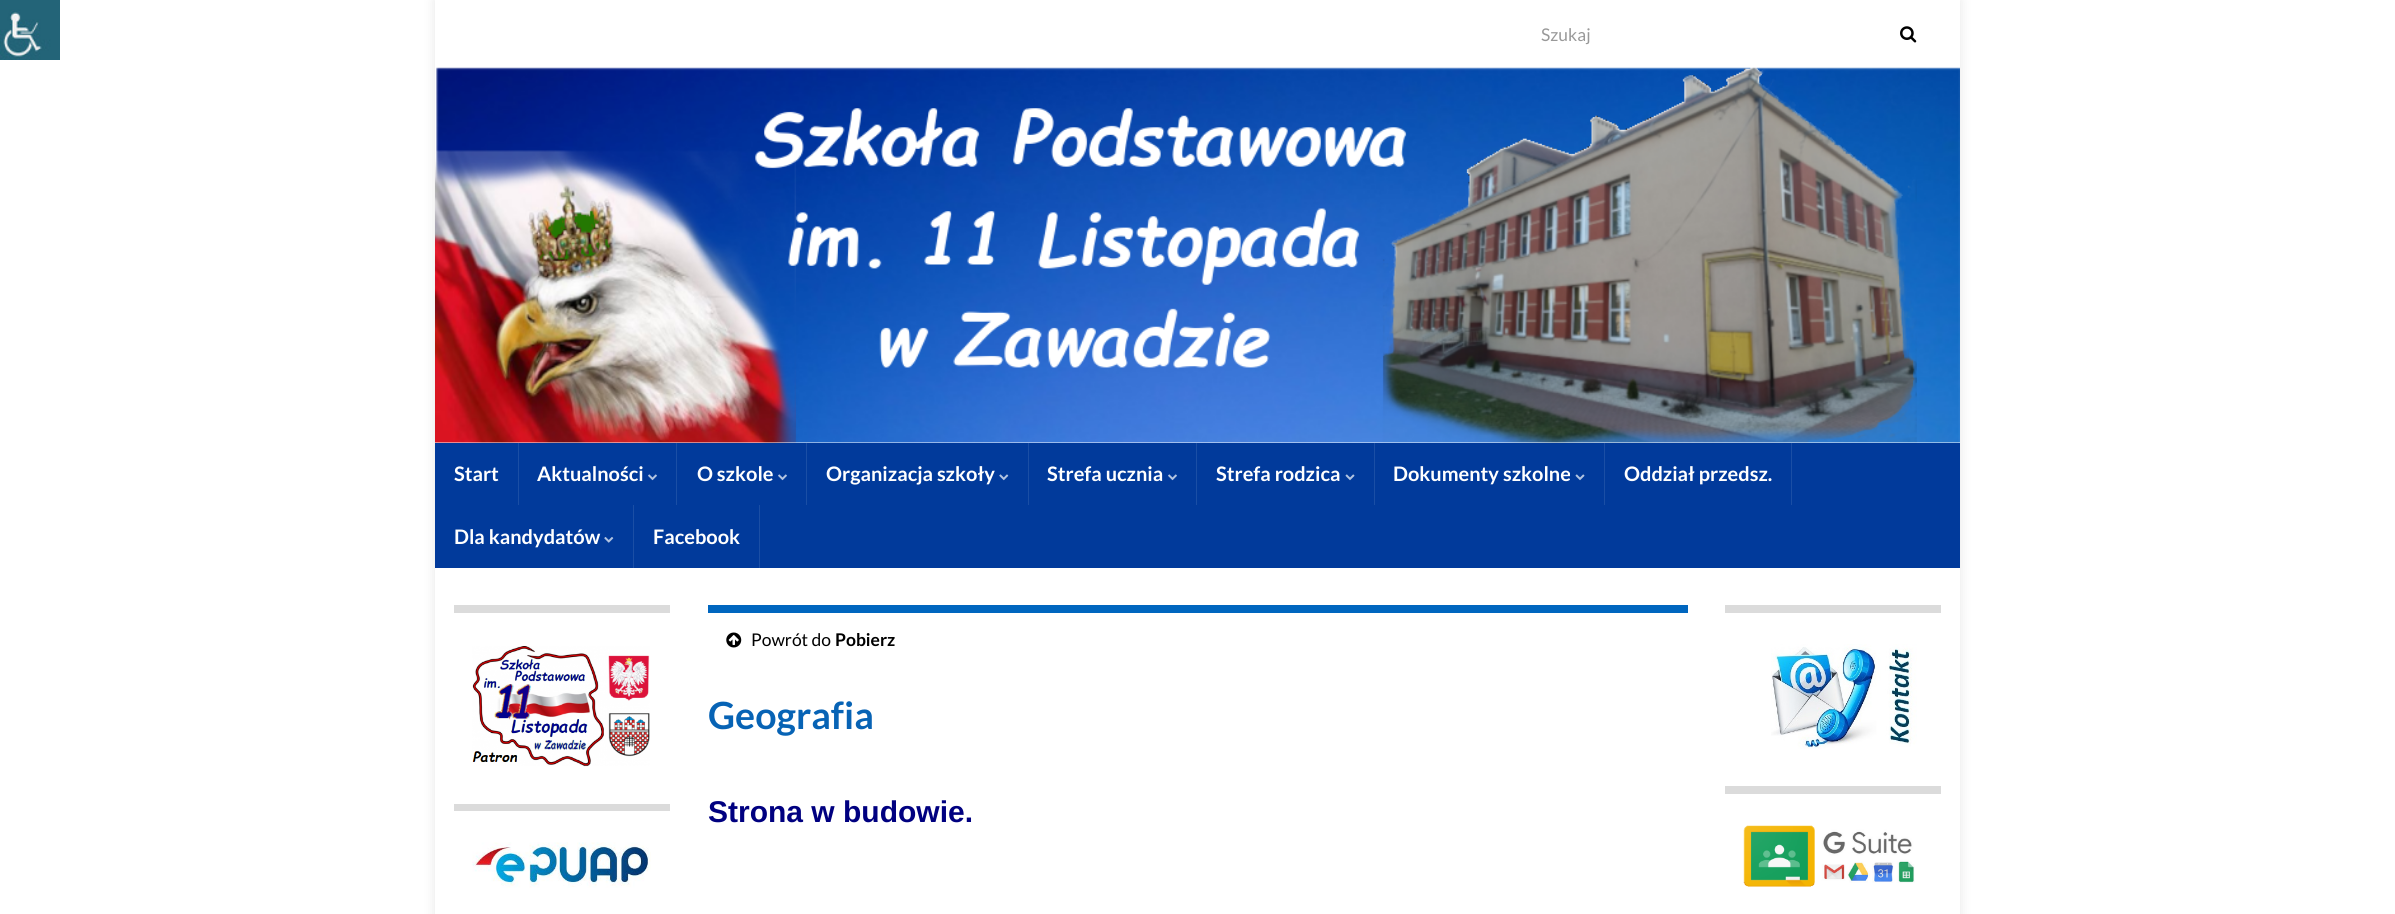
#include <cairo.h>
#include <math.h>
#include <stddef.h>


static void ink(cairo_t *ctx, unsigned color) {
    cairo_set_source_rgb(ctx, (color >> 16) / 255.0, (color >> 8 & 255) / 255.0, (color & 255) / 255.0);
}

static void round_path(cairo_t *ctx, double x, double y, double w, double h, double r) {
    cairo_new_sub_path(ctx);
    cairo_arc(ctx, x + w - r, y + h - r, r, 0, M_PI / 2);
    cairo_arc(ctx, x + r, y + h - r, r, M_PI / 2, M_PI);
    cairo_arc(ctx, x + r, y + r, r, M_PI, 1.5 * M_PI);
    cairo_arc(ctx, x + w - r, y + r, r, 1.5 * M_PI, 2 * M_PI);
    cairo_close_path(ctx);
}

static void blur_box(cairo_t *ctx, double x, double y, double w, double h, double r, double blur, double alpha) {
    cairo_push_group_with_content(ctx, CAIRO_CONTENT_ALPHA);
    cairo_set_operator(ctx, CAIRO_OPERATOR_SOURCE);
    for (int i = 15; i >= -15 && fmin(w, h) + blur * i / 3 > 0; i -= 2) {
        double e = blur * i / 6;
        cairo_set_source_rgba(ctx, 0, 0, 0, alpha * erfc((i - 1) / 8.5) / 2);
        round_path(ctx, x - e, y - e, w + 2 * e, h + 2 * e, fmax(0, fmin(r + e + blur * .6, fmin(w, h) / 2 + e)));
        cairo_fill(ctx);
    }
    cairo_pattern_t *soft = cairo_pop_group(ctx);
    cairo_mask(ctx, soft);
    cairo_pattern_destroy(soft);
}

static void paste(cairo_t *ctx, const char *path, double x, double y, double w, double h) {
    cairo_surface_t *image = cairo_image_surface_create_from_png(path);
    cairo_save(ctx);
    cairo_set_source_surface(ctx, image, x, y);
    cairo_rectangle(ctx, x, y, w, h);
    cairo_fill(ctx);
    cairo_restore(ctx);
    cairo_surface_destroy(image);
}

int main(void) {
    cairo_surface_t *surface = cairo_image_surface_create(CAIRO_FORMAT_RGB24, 2395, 914);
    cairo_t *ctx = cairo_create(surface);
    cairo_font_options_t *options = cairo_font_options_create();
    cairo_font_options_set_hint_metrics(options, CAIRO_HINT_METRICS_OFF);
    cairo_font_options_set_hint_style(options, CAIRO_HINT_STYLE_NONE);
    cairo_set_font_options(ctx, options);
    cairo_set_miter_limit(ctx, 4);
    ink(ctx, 0xFFFFFF);
    cairo_paint(ctx);
    paste(ctx, "media/1.png", 0, 0, 60, 60);
    cairo_save(ctx);
    cairo_set_fill_rule(ctx, CAIRO_FILL_RULE_EVEN_ODD);
    cairo_new_path(ctx);
    cairo_move_to(ctx, 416, 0);
    cairo_line_to(ctx, 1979, 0);
    cairo_line_to(ctx, 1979, 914);
    cairo_line_to(ctx, 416, 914);
    cairo_close_path(ctx);
    cairo_move_to(ctx, 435, 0);
    cairo_line_to(ctx, 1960, 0);
    cairo_line_to(ctx, 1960, 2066);
    cairo_line_to(ctx, 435, 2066);
    cairo_close_path(ctx);
    cairo_clip(ctx);
    ink(ctx, 0x000000);
    blur_box(ctx, 435, 0, 1525, 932, 0, 6, 0.1);
    cairo_restore(ctx);
    cairo_select_font_face(ctx, "Lato", CAIRO_FONT_SLANT_NORMAL, CAIRO_FONT_WEIGHT_NORMAL);
    cairo_set_font_size(ctx, 17.5);
    ink(ctx, 0x999999);
    cairo_move_to(ctx, 1541, 41);
    cairo_show_text(ctx, "Szukaj");
    paste(ctx, "media/2.png", 1900, 26, 17, 17);
    paste(ctx, "media/3.png", 435, 67, 1525, 376);
    ink(ctx, 0x013A9B);
    cairo_rectangle(ctx, 435, 443, 1525, 125);
    cairo_fill(ctx);
    ink(ctx, 0x1A4EA5);
    cairo_rectangle(ctx, 518, 443, 1, 62);
    cairo_fill(ctx);
    cairo_select_font_face(ctx, "Lato", CAIRO_FONT_SLANT_NORMAL, CAIRO_FONT_WEIGHT_BOLD);
    cairo_set_font_size(ctx, 20);
    ink(ctx, 0xFFFFFF);
    cairo_move_to(ctx, 454, 481);
    cairo_show_text(ctx, "Start");
    ink(ctx, 0x1A4EA5);
    cairo_rectangle(ctx, 676, 443, 1, 62);
    cairo_fill(ctx);
    ink(ctx, 0xFFFFFF);
    cairo_move_to(ctx, 537, 481);
    cairo_show_text(ctx, "Aktualności");
    paste(ctx, "media/4.png", 648, 474, 9, 7);
    ink(ctx, 0x1A4EA5);
    cairo_rectangle(ctx, 806, 443, 1, 62);
    cairo_fill(ctx);
    ink(ctx, 0xFFFFFF);
    cairo_move_to(ctx, 697, 481);
    cairo_show_text(ctx, "O szkole");
    paste(ctx, "media/4.png", 778, 474, 9, 7);
    ink(ctx, 0x1A4EA5);
    cairo_rectangle(ctx, 1028, 443, 1, 62);
    cairo_fill(ctx);
    ink(ctx, 0xFFFFFF);
    cairo_move_to(ctx, 826, 481);
    cairo_show_text(ctx, "Organizacja szkoły");
    paste(ctx, "media/5.png", 999, 474, 10, 7);
    ink(ctx, 0x1A4EA5);
    cairo_rectangle(ctx, 1196, 443, 1, 62);
    cairo_fill(ctx);
    ink(ctx, 0xFFFFFF);
    cairo_move_to(ctx, 1047, 481);
    cairo_show_text(ctx, "Strefa ucznia");
    paste(ctx, "media/4.png", 1168, 474, 9, 7);
    ink(ctx, 0x1A4EA5);
    cairo_rectangle(ctx, 1374, 443, 1, 62);
    cairo_fill(ctx);
    ink(ctx, 0xFFFFFF);
    cairo_move_to(ctx, 1216, 481);
    cairo_show_text(ctx, "Strefa rodzica");
    paste(ctx, "media/6.png", 1345, 474, 10, 7);
    ink(ctx, 0x1A4EA5);
    cairo_rectangle(ctx, 1604, 443, 1, 62);
    cairo_fill(ctx);
    ink(ctx, 0xFFFFFF);
    cairo_move_to(ctx, 1393, 481);
    cairo_show_text(ctx, "Dokumenty szkolne");
    paste(ctx, "media/6.png", 1575, 474, 10, 7);
    ink(ctx, 0x1A4EA5);
    cairo_rectangle(ctx, 1791, 443, 1, 62);
    cairo_fill(ctx);
    ink(ctx, 0xFFFFFF);
    cairo_move_to(ctx, 1624, 481);
    cairo_show_text(ctx, "Oddział przedsz.");
    ink(ctx, 0x1A4EA5);
    cairo_rectangle(ctx, 633, 505, 1, 63);
    cairo_fill(ctx);
    ink(ctx, 0xFFFFFF);
    cairo_move_to(ctx, 454, 544);
    cairo_show_text(ctx, "Dla kandydatów");
    paste(ctx, "media/7.png", 604, 537, 10, 6);
    ink(ctx, 0x1A4EA5);
    cairo_rectangle(ctx, 759, 505, 1, 63);
    cairo_fill(ctx);
    ink(ctx, 0xFFFFFF);
    cairo_move_to(ctx, 653, 544);
    cairo_show_text(ctx, "Facebook");
    ink(ctx, 0xDBDBDB);
    cairo_rectangle(ctx, 454, 605, 216, 8);
    cairo_fill(ctx);
    paste(ctx, "media/8.png", 472, 646, 178, 121);
    cairo_rectangle(ctx, 454, 804, 216, 7);
    cairo_fill(ctx);
    paste(ctx, "media/9.png", 472, 842, 179, 46);
    ink(ctx, 0x0066BF);
    cairo_rectangle(ctx, 708, 605, 980, 8);
    cairo_fill(ctx);
    paste(ctx, "media/10.png", 726, 632, 16, 16);
    cairo_select_font_face(ctx, "Lato", CAIRO_FONT_SLANT_NORMAL, CAIRO_FONT_WEIGHT_NORMAL);
    cairo_set_font_size(ctx, 17.5);
    ink(ctx, 0x000000);
    cairo_move_to(ctx, 751, 646);
    cairo_show_text(ctx, "Powrót do");
    cairo_select_font_face(ctx, "Lato", CAIRO_FONT_SLANT_NORMAL, CAIRO_FONT_WEIGHT_BOLD);
    cairo_move_to(ctx, 835, 646);
    cairo_show_text(ctx, "Pobierz");
    cairo_set_font_size(ctx, 37.5);
    ink(ctx, 0x0763B5);
    cairo_move_to(ctx, 708, 729);
    cairo_show_text(ctx, "Geografia");
    cairo_select_font_face(ctx, "Liberation Sans", CAIRO_FONT_SLANT_NORMAL, CAIRO_FONT_WEIGHT_BOLD);
    cairo_set_font_size(ctx, 30);
    ink(ctx, 0x000080);
    cairo_move_to(ctx, 708, 822);
    cairo_show_text(ctx, "Strona w budowie.");
    ink(ctx, 0xDBDBDB);
    cairo_rectangle(ctx, 1725, 605, 216, 8);
    cairo_fill(ctx);
    paste(ctx, "media/11.png", 1771, 644, 146, 105);
    cairo_rectangle(ctx, 1725, 786, 216, 8);
    cairo_fill(ctx);
    paste(ctx, "media/12.png", 1743, 825, 172, 62);
    cairo_surface_write_to_png(surface, "image.png");
    cairo_font_options_destroy(options);
    cairo_destroy(ctx);
    cairo_surface_destroy(surface);
    return 0;
}
